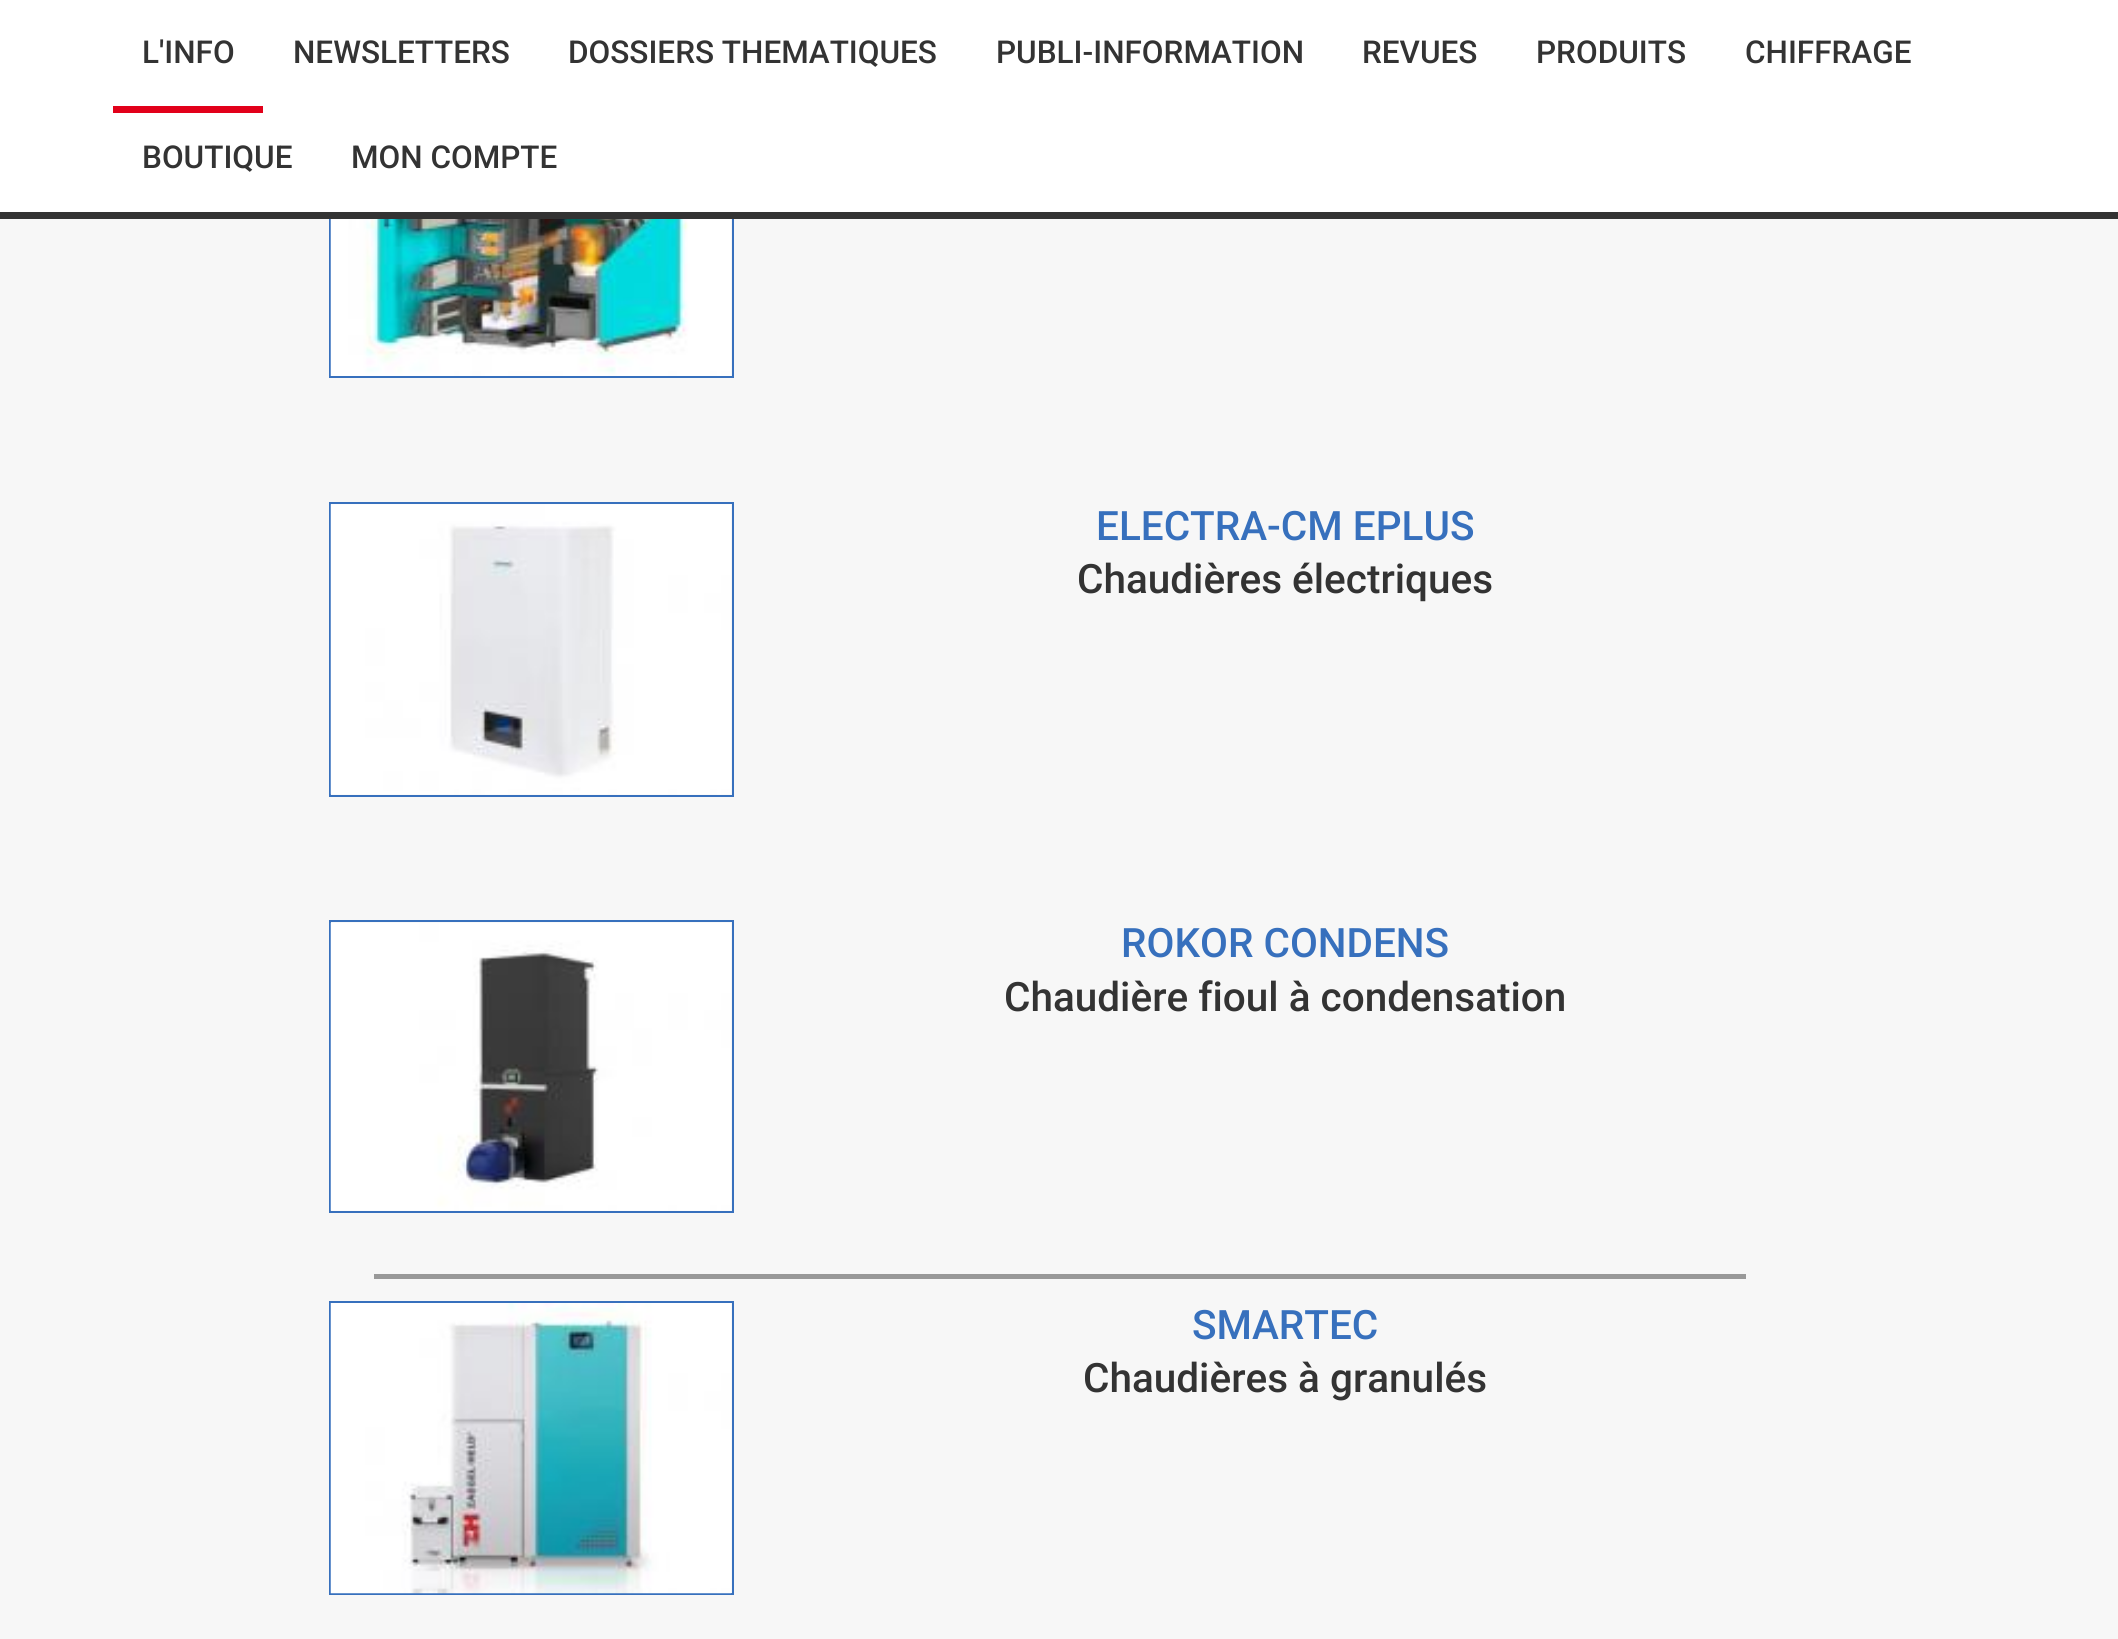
#include <cairo.h>
#include <math.h>
#include <stddef.h>

typedef struct { double x, y; const char *s; } line_t;

static void ink(cairo_t *ctx, unsigned color) {
    cairo_set_source_rgb(ctx, (color >> 16) / 255.0, (color >> 8 & 255) / 255.0, (color & 255) / 255.0);
}

static void paste(cairo_t *ctx, const char *path, double x, double y, double w, double h) {
    cairo_surface_t *image = cairo_image_surface_create_from_png(path);
    cairo_save(ctx);
    cairo_set_source_surface(ctx, image, x, y);
    cairo_rectangle(ctx, x, y, w, h);
    cairo_fill(ctx);
    cairo_restore(ctx);
    cairo_surface_destroy(image);
}

int main(void) {
    cairo_surface_t *surface = cairo_image_surface_create(CAIRO_FORMAT_RGB24, 2118, 1639);
    cairo_t *ctx = cairo_create(surface);
    cairo_font_options_t *options = cairo_font_options_create();
    cairo_font_options_set_hint_metrics(options, CAIRO_HINT_METRICS_OFF);
    cairo_font_options_set_hint_style(options, CAIRO_HINT_STYLE_NONE);
    cairo_set_font_options(ctx, options);
    cairo_set_miter_limit(ctx, 4);
    ink(ctx, 0xF7F7F7);
    cairo_paint(ctx);
    cairo_rectangle(ctx, 330, 84, 403, 293);
    ink(ctx, 0x3770BD);
    cairo_stroke(ctx);
    ink(ctx, 0xFFFFFF);
    cairo_rectangle(ctx, 0, 0, 2118, 212);
    cairo_fill(ctx);
    ink(ctx, 0x333333);
    cairo_rectangle(ctx, 0, 212, 2118, 7);
    cairo_fill(ctx);
    cairo_select_font_face(ctx, "Roboto Medium", CAIRO_FONT_SLANT_NORMAL, CAIRO_FONT_WEIGHT_NORMAL);
    cairo_set_font_size(ctx, 31.5);
    cairo_move_to(ctx, 142, 63);
    cairo_show_text(ctx, "L'INFO");
    ink(ctx, 0xE2001A);
    cairo_rectangle(ctx, 113, 106, 150, 7);
    cairo_fill(ctx);
    ink(ctx, 0x333333);
    {
        static const line_t items[] = {
            {293, 63, "NEWSLETTERS"},
            {568, 63, "DOSSIERS THEMATIQUES"},
            {996, 63, "PUBLI-INFORMATION"},
            {1362, 63, "REVUES"},
            {1536, 63, "PRODUITS"},
            {1745, 63, "CHIFFRAGE"},
            {142, 168, "BOUTIQUE"},
            {351, 168, "MON COMPTE"},
        };
        for (size_t i = 0; i < sizeof items / sizeof *items; i++) {
            cairo_move_to(ctx, items[i].x, items[i].y);
            cairo_show_text(ctx, items[i].s);
        }
    }
    paste(ctx, "media/1.png", 330, 219, 401, 157);
    cairo_rectangle(ctx, 330, 503, 403, 293);
    ink(ctx, 0x3770BD);
    cairo_stroke(ctx);
    paste(ctx, "media/2.png", 330, 504, 401, 291);
    cairo_set_font_size(ctx, 40.5);
    cairo_move_to(ctx, 1096, 540);
    cairo_show_text(ctx, "ELECTRA-CM EPLUS");
    ink(ctx, 0x333333);
    cairo_move_to(ctx, 1077, 593);
    cairo_show_text(ctx, "Chaudières électriques");
    cairo_rectangle(ctx, 330, 921, 403, 291);
    ink(ctx, 0x3770BD);
    cairo_stroke(ctx);
    paste(ctx, "media/3.png", 330, 922, 401, 289);
    cairo_move_to(ctx, 1121, 957);
    cairo_show_text(ctx, "ROKOR CONDENS");
    ink(ctx, 0x333333);
    cairo_move_to(ctx, 1004, 1011);
    cairo_show_text(ctx, "Chaudière fioul à condensation");
    ink(ctx, 0x999999);
    cairo_rectangle(ctx, 374, 1274, 1372, 5);
    cairo_fill(ctx);
    cairo_rectangle(ctx, 330, 1302, 403, 292);
    ink(ctx, 0x3770BD);
    cairo_stroke(ctx);
    paste(ctx, "media/4.png", 330, 1303, 402, 291);
    cairo_move_to(ctx, 1192, 1339);
    cairo_show_text(ctx, "SMARTEC");
    ink(ctx, 0x333333);
    cairo_move_to(ctx, 1083, 1392);
    cairo_show_text(ctx, "Chaudières à granulés");
    cairo_surface_write_to_png(surface, "image.png");
    cairo_font_options_destroy(options);
    cairo_destroy(ctx);
    cairo_surface_destroy(surface);
    return 0;
}
